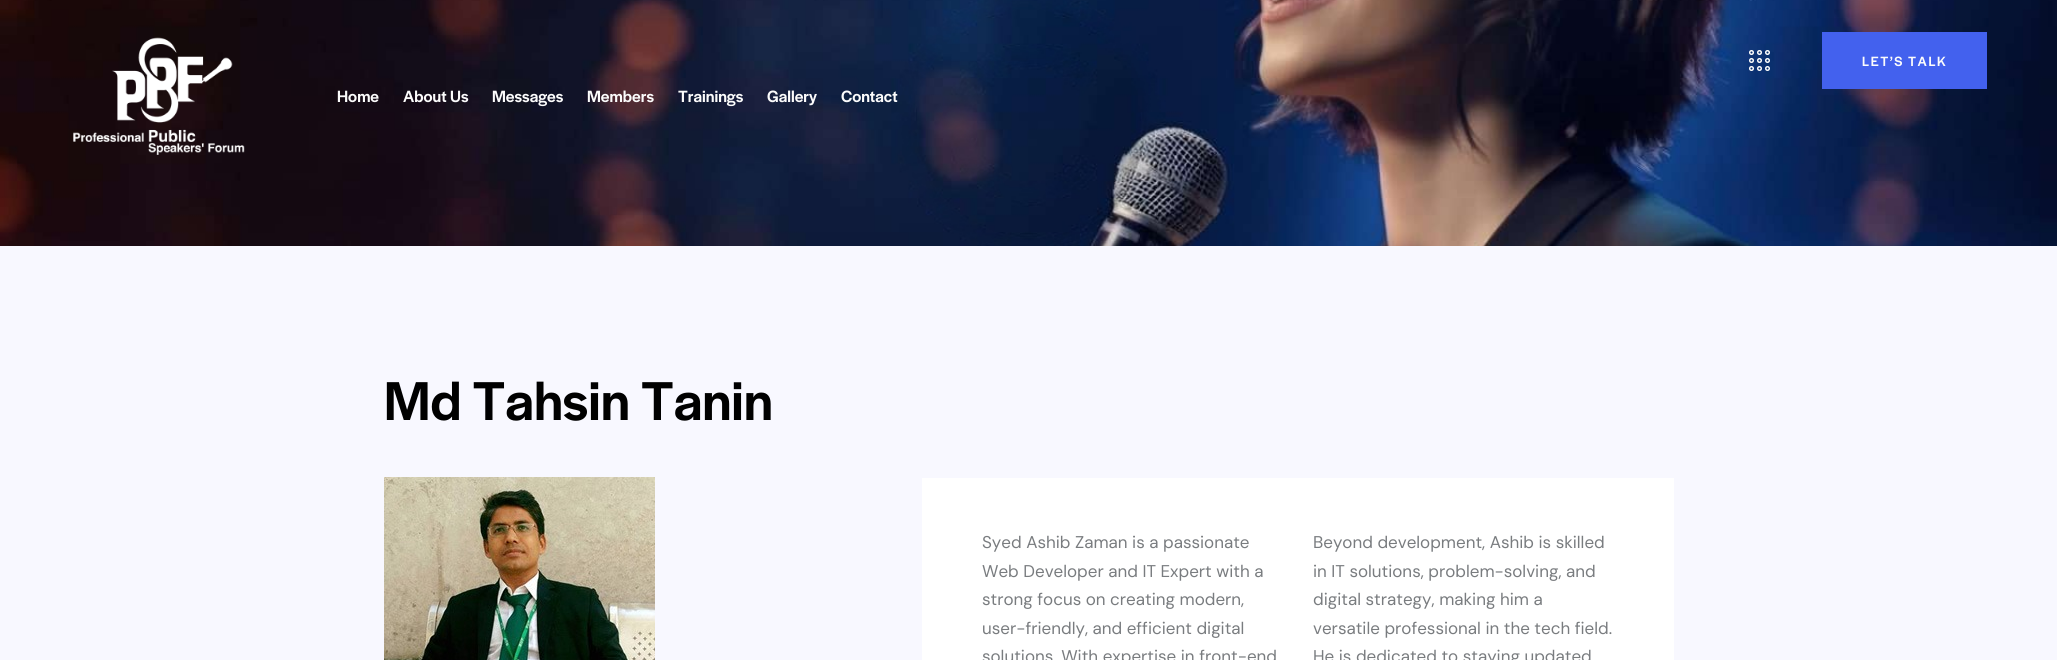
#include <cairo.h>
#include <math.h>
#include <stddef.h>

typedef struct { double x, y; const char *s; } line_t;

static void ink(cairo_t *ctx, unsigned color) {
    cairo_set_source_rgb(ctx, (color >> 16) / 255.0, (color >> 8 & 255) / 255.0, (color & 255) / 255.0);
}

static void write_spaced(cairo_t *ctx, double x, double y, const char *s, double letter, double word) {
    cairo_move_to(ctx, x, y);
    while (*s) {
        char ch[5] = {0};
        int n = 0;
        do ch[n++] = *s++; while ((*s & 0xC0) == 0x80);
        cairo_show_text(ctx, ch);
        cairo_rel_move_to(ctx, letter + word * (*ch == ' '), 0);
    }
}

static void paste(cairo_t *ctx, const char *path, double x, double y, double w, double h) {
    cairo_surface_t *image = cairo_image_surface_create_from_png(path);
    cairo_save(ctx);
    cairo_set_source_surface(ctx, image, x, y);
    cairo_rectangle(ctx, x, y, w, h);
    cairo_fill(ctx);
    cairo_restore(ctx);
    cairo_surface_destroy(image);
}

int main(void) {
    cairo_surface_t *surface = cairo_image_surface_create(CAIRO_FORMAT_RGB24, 2057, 660);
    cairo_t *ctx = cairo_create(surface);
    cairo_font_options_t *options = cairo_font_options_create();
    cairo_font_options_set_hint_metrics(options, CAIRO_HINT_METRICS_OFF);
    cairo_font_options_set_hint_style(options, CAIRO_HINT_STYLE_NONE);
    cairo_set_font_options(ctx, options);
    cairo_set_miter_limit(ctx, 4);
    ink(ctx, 0xF8F8FF);
    cairo_paint(ctx);
    paste(ctx, "media/1.png", 0, 0, 2057, 246);
    paste(ctx, "media/2.png", 1749, 50, 21, 21);
    ink(ctx, 0x4361EE);
    cairo_rectangle(ctx, 1822, 32, 165, 57);
    cairo_fill(ctx);
    cairo_select_font_face(ctx, "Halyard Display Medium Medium", CAIRO_FONT_SLANT_NORMAL, CAIRO_FONT_WEIGHT_NORMAL);
    cairo_set_font_size(ctx, 14);
    ink(ctx, 0xFCFCFC);
    write_spaced(ctx, 1862, 66, "LET’S TALK", 1.5, 0);
    paste(ctx, "media/3.png", 73, 37, 172, 118);
    cairo_set_font_size(ctx, 17);
    {
        static const line_t items[] = {
            {337, 102, "Home"},
            {403, 102, "About Us"},
            {492, 102, "Messages"},
            {587, 102, "Members"},
            {678, 102, "Trainings"},
            {767, 102, "Gallery"},
            {841, 102, "Contact"},
        };
        for (size_t i = 0; i < sizeof items / sizeof *items; i++) {
            cairo_move_to(ctx, items[i].x, items[i].y);
            cairo_show_text(ctx, items[i].s);
        }
    }
    cairo_set_font_size(ctx, 57);
    ink(ctx, 0x000000);
    cairo_move_to(ctx, 384, 420);
    cairo_show_text(ctx, "Md Tahsin Tanin");
    paste(ctx, "media/4.png", 384, 477, 271, 183);
    ink(ctx, 0xFFFFFF);
    cairo_rectangle(ctx, 922, 478, 752, 182);
    cairo_fill(ctx);
    cairo_select_font_face(ctx, "DM Sans", CAIRO_FONT_SLANT_NORMAL, CAIRO_FONT_WEIGHT_NORMAL);
    cairo_set_font_size(ctx, 17);
    ink(ctx, 0x797C7F);
    {
        static const line_t items[] = {
            {982, 548, "Syed Ashib Zaman is a passionate"},
            {982, 577, "Web Developer and IT Expert with a"},
            {982, 605, "strong focus on creating modern,"},
            {982, 634, "user-friendly, and efficient digital"},
            {982, 662, "solutions. With expertise in front-end"},
            {1313, 548, "Beyond development, Ashib is skilled"},
            {1313, 577, "in IT solutions, problem-solving, and"},
            {1313, 605, "digital strategy, making him a"},
            {1313, 634, "versatile professional in the tech field."},
            {1313, 662, "He is dedicated to staying updated"},
        };
        for (size_t i = 0; i < sizeof items / sizeof *items; i++) {
            cairo_move_to(ctx, items[i].x, items[i].y);
            cairo_show_text(ctx, items[i].s);
        }
    }
    cairo_surface_write_to_png(surface, "image.png");
    cairo_font_options_destroy(options);
    cairo_destroy(ctx);
    cairo_surface_destroy(surface);
    return 0;
}
